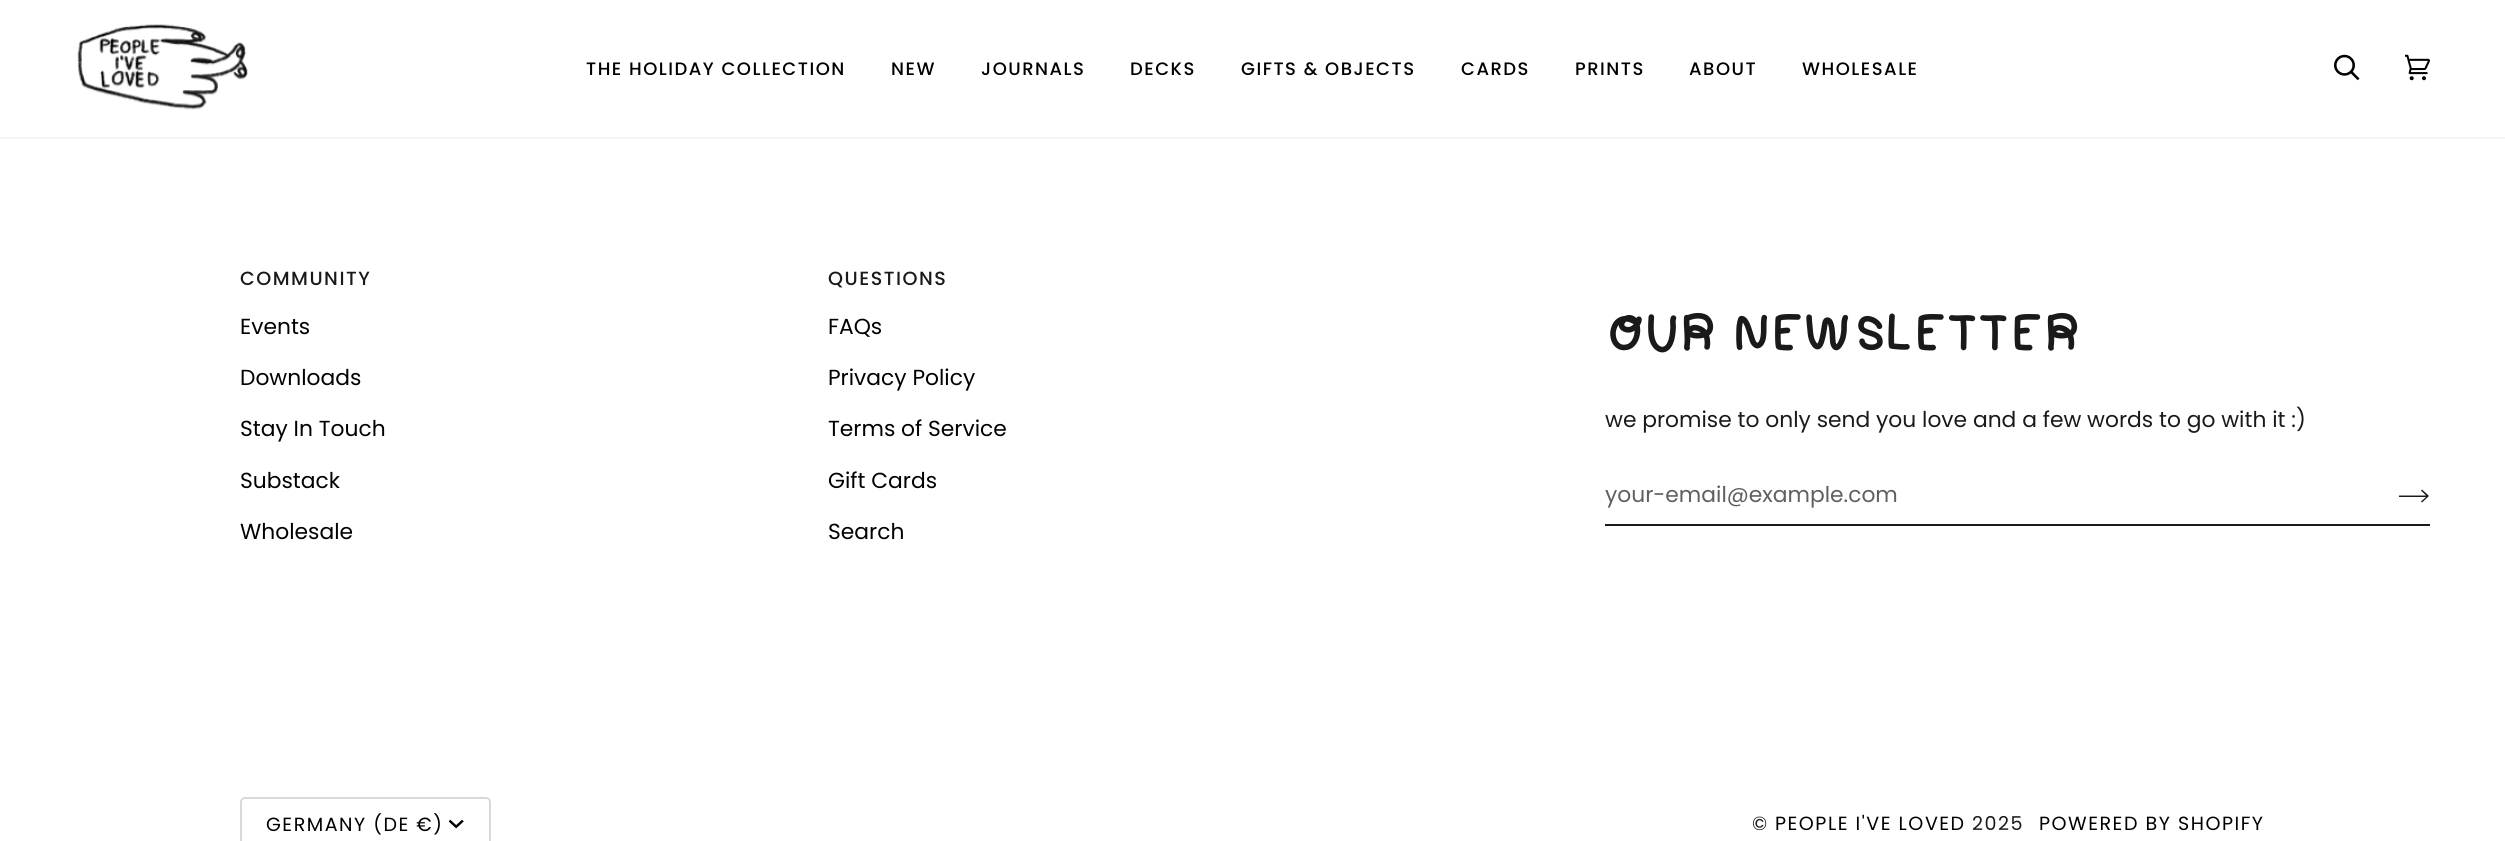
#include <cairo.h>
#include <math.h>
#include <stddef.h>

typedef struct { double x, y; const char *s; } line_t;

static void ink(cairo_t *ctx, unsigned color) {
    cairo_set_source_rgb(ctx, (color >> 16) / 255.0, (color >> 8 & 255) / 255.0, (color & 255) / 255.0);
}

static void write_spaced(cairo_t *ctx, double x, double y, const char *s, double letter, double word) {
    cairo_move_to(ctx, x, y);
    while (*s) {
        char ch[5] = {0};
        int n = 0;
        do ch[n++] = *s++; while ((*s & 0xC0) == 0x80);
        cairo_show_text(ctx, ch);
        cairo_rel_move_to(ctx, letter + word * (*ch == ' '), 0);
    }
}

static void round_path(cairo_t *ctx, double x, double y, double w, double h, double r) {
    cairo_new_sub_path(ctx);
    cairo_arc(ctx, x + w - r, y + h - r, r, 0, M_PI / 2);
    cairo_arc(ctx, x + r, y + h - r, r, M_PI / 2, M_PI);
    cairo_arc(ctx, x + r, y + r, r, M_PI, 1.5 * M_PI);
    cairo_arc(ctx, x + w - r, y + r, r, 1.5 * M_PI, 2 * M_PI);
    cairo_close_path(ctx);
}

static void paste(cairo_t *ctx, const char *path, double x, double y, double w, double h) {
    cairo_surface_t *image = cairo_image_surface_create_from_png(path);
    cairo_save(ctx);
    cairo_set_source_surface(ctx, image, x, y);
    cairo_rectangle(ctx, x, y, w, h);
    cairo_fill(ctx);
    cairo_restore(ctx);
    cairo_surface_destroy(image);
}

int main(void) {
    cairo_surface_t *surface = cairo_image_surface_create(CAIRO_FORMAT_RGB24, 2505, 841);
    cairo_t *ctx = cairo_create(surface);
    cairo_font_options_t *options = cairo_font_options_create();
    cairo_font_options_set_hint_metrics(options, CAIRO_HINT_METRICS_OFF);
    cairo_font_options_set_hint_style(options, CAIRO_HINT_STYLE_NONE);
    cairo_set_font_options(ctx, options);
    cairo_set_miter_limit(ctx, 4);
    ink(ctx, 0xFFFFFF);
    cairo_paint(ctx);
    ink(ctx, 0xF7F5F4);
    cairo_rectangle(ctx, 0, 137, 2505, 2);
    cairo_fill(ctx);
    paste(ctx, "media/1.png", 77, 24, 172, 86);
    cairo_select_font_face(ctx, "Poppins Medium", CAIRO_FONT_SLANT_NORMAL, CAIRO_FONT_WEIGHT_NORMAL);
    cairo_set_font_size(ctx, 18);
    ink(ctx, 0x000000);
    {
        static const line_t items[] = {
            {586, 75, "THE HOLIDAY COLLECTION"},
            {891, 75, "NEW"},
            {981, 75, "JOURNALS"},
            {1130, 75, "DECKS"},
            {1241, 75, "GIFTS & OBJECTS"},
            {1461, 75, "CARDS"},
            {1575, 75, "PRINTS"},
            {1689, 75, "ABOUT"},
            {1802, 75, "WHOLESALE"},
        };
        for (size_t i = 0; i < sizeof items / sizeof *items; i++) {
            write_spaced(ctx, items[i].x, items[i].y, items[i].s, 1.5, 0);
        }
    }
    paste(ctx, "media/2.png", 2334, 54, 26, 27);
    paste(ctx, "media/3.png", 2405, 54, 25, 27);
    cairo_set_font_size(ctx, 19.1);
    ink(ctx, 0x1A1A1A);
    write_spaced(ctx, 240, 285, "COMMUNITY", 1.5, 0);
    cairo_select_font_face(ctx, "Poppins", CAIRO_FONT_SLANT_NORMAL, CAIRO_FONT_WEIGHT_NORMAL);
    cairo_set_font_size(ctx, 21.8);
    ink(ctx, 0x000000);
    {
        static const line_t items[] = {
            {240, 334, "Events"},
            {240, 385, "Downloads"},
            {240, 436, "Stay In Touch"},
            {240, 488, "Substack"},
            {240, 539, "Wholesale"},
        };
        for (size_t i = 0; i < sizeof items / sizeof *items; i++) {
            cairo_move_to(ctx, items[i].x, items[i].y);
            cairo_show_text(ctx, items[i].s);
        }
    }
    cairo_select_font_face(ctx, "Poppins Medium", CAIRO_FONT_SLANT_NORMAL, CAIRO_FONT_WEIGHT_NORMAL);
    cairo_set_font_size(ctx, 19.1);
    ink(ctx, 0x1A1A1A);
    write_spaced(ctx, 828, 285, "QUESTIONS", 1.5, 0);
    cairo_select_font_face(ctx, "Poppins", CAIRO_FONT_SLANT_NORMAL, CAIRO_FONT_WEIGHT_NORMAL);
    cairo_set_font_size(ctx, 21.8);
    ink(ctx, 0x000000);
    {
        static const line_t items[] = {
            {828, 334, "FAQs"},
            {828, 385, "Privacy Policy"},
            {828, 436, "Terms of Service"},
            {828, 488, "Gift Cards"},
            {828, 539, "Search"},
        };
        for (size_t i = 0; i < sizeof items / sizeof *items; i++) {
            cairo_move_to(ctx, items[i].x, items[i].y);
            cairo_show_text(ctx, items[i].s);
        }
    }
    cairo_select_font_face(ctx, "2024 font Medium", CAIRO_FONT_SLANT_NORMAL, CAIRO_FONT_WEIGHT_NORMAL);
    cairo_set_font_size(ctx, 48.25);
    ink(ctx, 0x1A1A1A);
    write_spaced(ctx, 1605, 350, "OUR NEWSLETTER", 1.5, 0);
    cairo_select_font_face(ctx, "Poppins", CAIRO_FONT_SLANT_NORMAL, CAIRO_FONT_WEIGHT_NORMAL);
    cairo_set_font_size(ctx, 21.8);
    cairo_move_to(ctx, 1605, 427);
    cairo_show_text(ctx, "we promise to only send you love and a few words to go with it :)");
    cairo_rectangle(ctx, 1605, 524, 825, 2);
    cairo_fill(ctx);
    ink(ctx, 0x5F5F5F);
    cairo_move_to(ctx, 1605, 502);
    cairo_show_text(ctx, "your-email@example.com");
    ink(ctx, 0x1A1A1A);
    cairo_new_path(ctx);
    cairo_move_to(ctx, 2421, 490.5);
    cairo_line_to(ctx, 2422, 489.5);
    cairo_line_to(ctx, 2429, 496);
    cairo_line_to(ctx, 2422, 502.5);
    cairo_line_to(ctx, 2421, 501.5);
    cairo_line_to(ctx, 2426, 497);
    cairo_line_to(ctx, 2399, 497);
    cairo_line_to(ctx, 2399, 495.5);
    cairo_line_to(ctx, 2426, 495.5);
    cairo_close_path(ctx);
    cairo_fill(ctx);
    round_path(ctx, 241, 798, 249, 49, 4);
    ink(ctx, 0xD9D9D9);
    cairo_stroke(ctx);
    cairo_set_font_size(ctx, 19.1);
    ink(ctx, 0x000000);
    write_spaced(ctx, 266, 831, "GERMANY (DE €)", 1.5, 0);
    paste(ctx, "media/4.png", 449, 819, 15, 10);
    ink(ctx, 0x1A1A1A);
    write_spaced(ctx, 1752, 830, "©", 1.5, 0);
    ink(ctx, 0x000000);
    write_spaced(ctx, 1775, 830, "PEOPLE I'VE LOVED", 1.5, 0);
    ink(ctx, 0x1A1A1A);
    write_spaced(ctx, 1972, 830, "2025", 1.5, 0);
    ink(ctx, 0x000000);
    write_spaced(ctx, 2039, 830, "POWERED BY SHOPIFY", 1.5, 0);
    cairo_surface_write_to_png(surface, "image.png");
    cairo_font_options_destroy(options);
    cairo_destroy(ctx);
    cairo_surface_destroy(surface);
    return 0;
}
